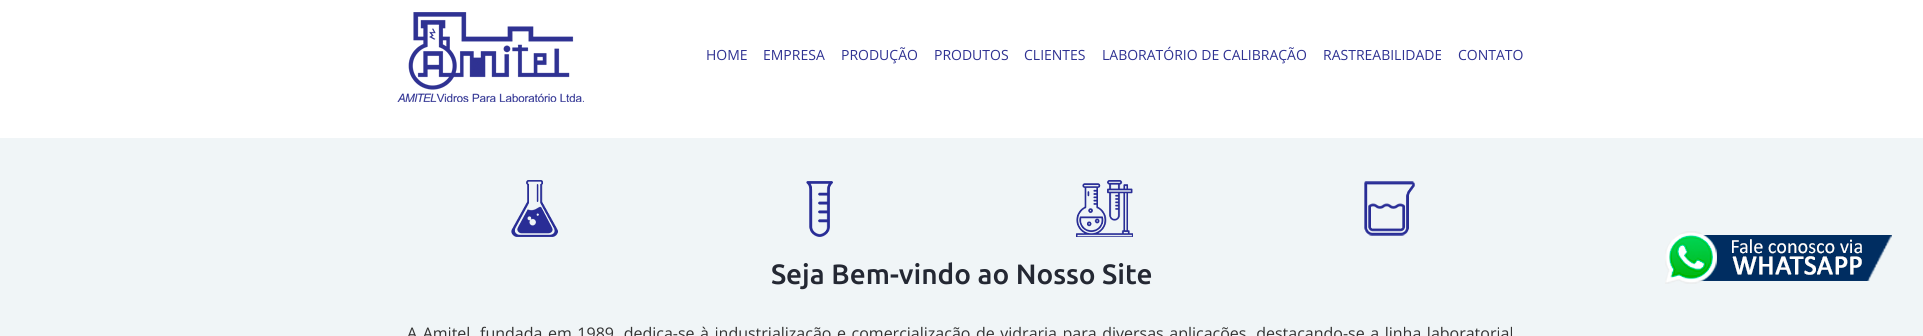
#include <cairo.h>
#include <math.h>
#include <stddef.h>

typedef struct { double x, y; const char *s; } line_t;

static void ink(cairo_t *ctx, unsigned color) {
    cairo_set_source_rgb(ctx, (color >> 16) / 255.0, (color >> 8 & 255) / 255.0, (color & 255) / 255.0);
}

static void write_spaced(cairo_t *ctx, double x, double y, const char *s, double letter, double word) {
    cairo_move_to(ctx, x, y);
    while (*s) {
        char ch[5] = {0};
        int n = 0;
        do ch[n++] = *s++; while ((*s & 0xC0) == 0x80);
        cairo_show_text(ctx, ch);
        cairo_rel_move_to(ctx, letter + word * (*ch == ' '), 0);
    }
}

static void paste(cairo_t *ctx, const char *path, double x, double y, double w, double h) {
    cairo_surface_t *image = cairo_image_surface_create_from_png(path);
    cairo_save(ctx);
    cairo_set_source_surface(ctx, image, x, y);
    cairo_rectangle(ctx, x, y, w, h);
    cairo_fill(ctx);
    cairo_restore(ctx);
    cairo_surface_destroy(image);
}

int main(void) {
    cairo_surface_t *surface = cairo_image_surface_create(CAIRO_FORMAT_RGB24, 1923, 336);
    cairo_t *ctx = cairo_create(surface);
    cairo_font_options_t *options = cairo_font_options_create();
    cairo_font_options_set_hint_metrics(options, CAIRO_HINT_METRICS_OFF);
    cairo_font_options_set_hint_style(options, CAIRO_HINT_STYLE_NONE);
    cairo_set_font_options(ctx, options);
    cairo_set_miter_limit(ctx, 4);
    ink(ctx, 0xFFFFFF);
    cairo_paint(ctx);
    paste(ctx, "media/1.png", 397, 12, 187, 90);
    cairo_select_font_face(ctx, "Open Sans", CAIRO_FONT_SLANT_NORMAL, CAIRO_FONT_WEIGHT_NORMAL);
    cairo_set_font_size(ctx, 14);
    ink(ctx, 0x2F3292);
    {
        static const line_t items[] = {
            {706, 60, "HOME"},
            {763, 60, "EMPRESA"},
            {841, 60, "PRODUÇÃO"},
            {934, 60, "PRODUTOS"},
            {1024, 60, "CLIENTES"},
            {1102, 60, "LABORATÓRIO DE CALIBRAÇÃO"},
            {1323, 60, "RASTREABILIDADE"},
            {1458, 60, "CONTATO"},
        };
        for (size_t i = 0; i < sizeof items / sizeof *items; i++) {
            cairo_move_to(ctx, items[i].x, items[i].y);
            cairo_show_text(ctx, items[i].s);
        }
    }
    ink(ctx, 0xF0F5F7);
    cairo_rectangle(ctx, 0, 138, 1923, 198);
    cairo_fill(ctx);
    paste(ctx, "media/2.png", 511, 180, 47, 57);
    paste(ctx, "media/3.png", 806, 181, 27, 56);
    paste(ctx, "media/4.png", 1076, 180, 57, 57);
    paste(ctx, "media/5.png", 1364, 181, 51, 55);
    cairo_select_font_face(ctx, "Ubuntu Medium", CAIRO_FONT_SLANT_NORMAL, CAIRO_FONT_WEIGHT_NORMAL);
    cairo_set_font_size(ctx, 28);
    ink(ctx, 0x242833);
    cairo_move_to(ctx, 771, 284);
    cairo_show_text(ctx, "Seja Bem-vindo ao Nosso Site");
    cairo_select_font_face(ctx, "Open Sans", CAIRO_FONT_SLANT_NORMAL, CAIRO_FONT_WEIGHT_NORMAL);
    cairo_set_font_size(ctx, 16);
    ink(ctx, 0x333333);
    write_spaced(ctx, 407, 339, "A Amitel, fundada em 1989, dedica-se à industrialização e comercialização de vidraria para diversas aplicações, destacando-se a linha laboratorial", 0, 1.4);
    paste(ctx, "media/6.png", 1665, 231, 227, 53);
    cairo_surface_write_to_png(surface, "image.png");
    cairo_font_options_destroy(options);
    cairo_destroy(ctx);
    cairo_surface_destroy(surface);
    return 0;
}
